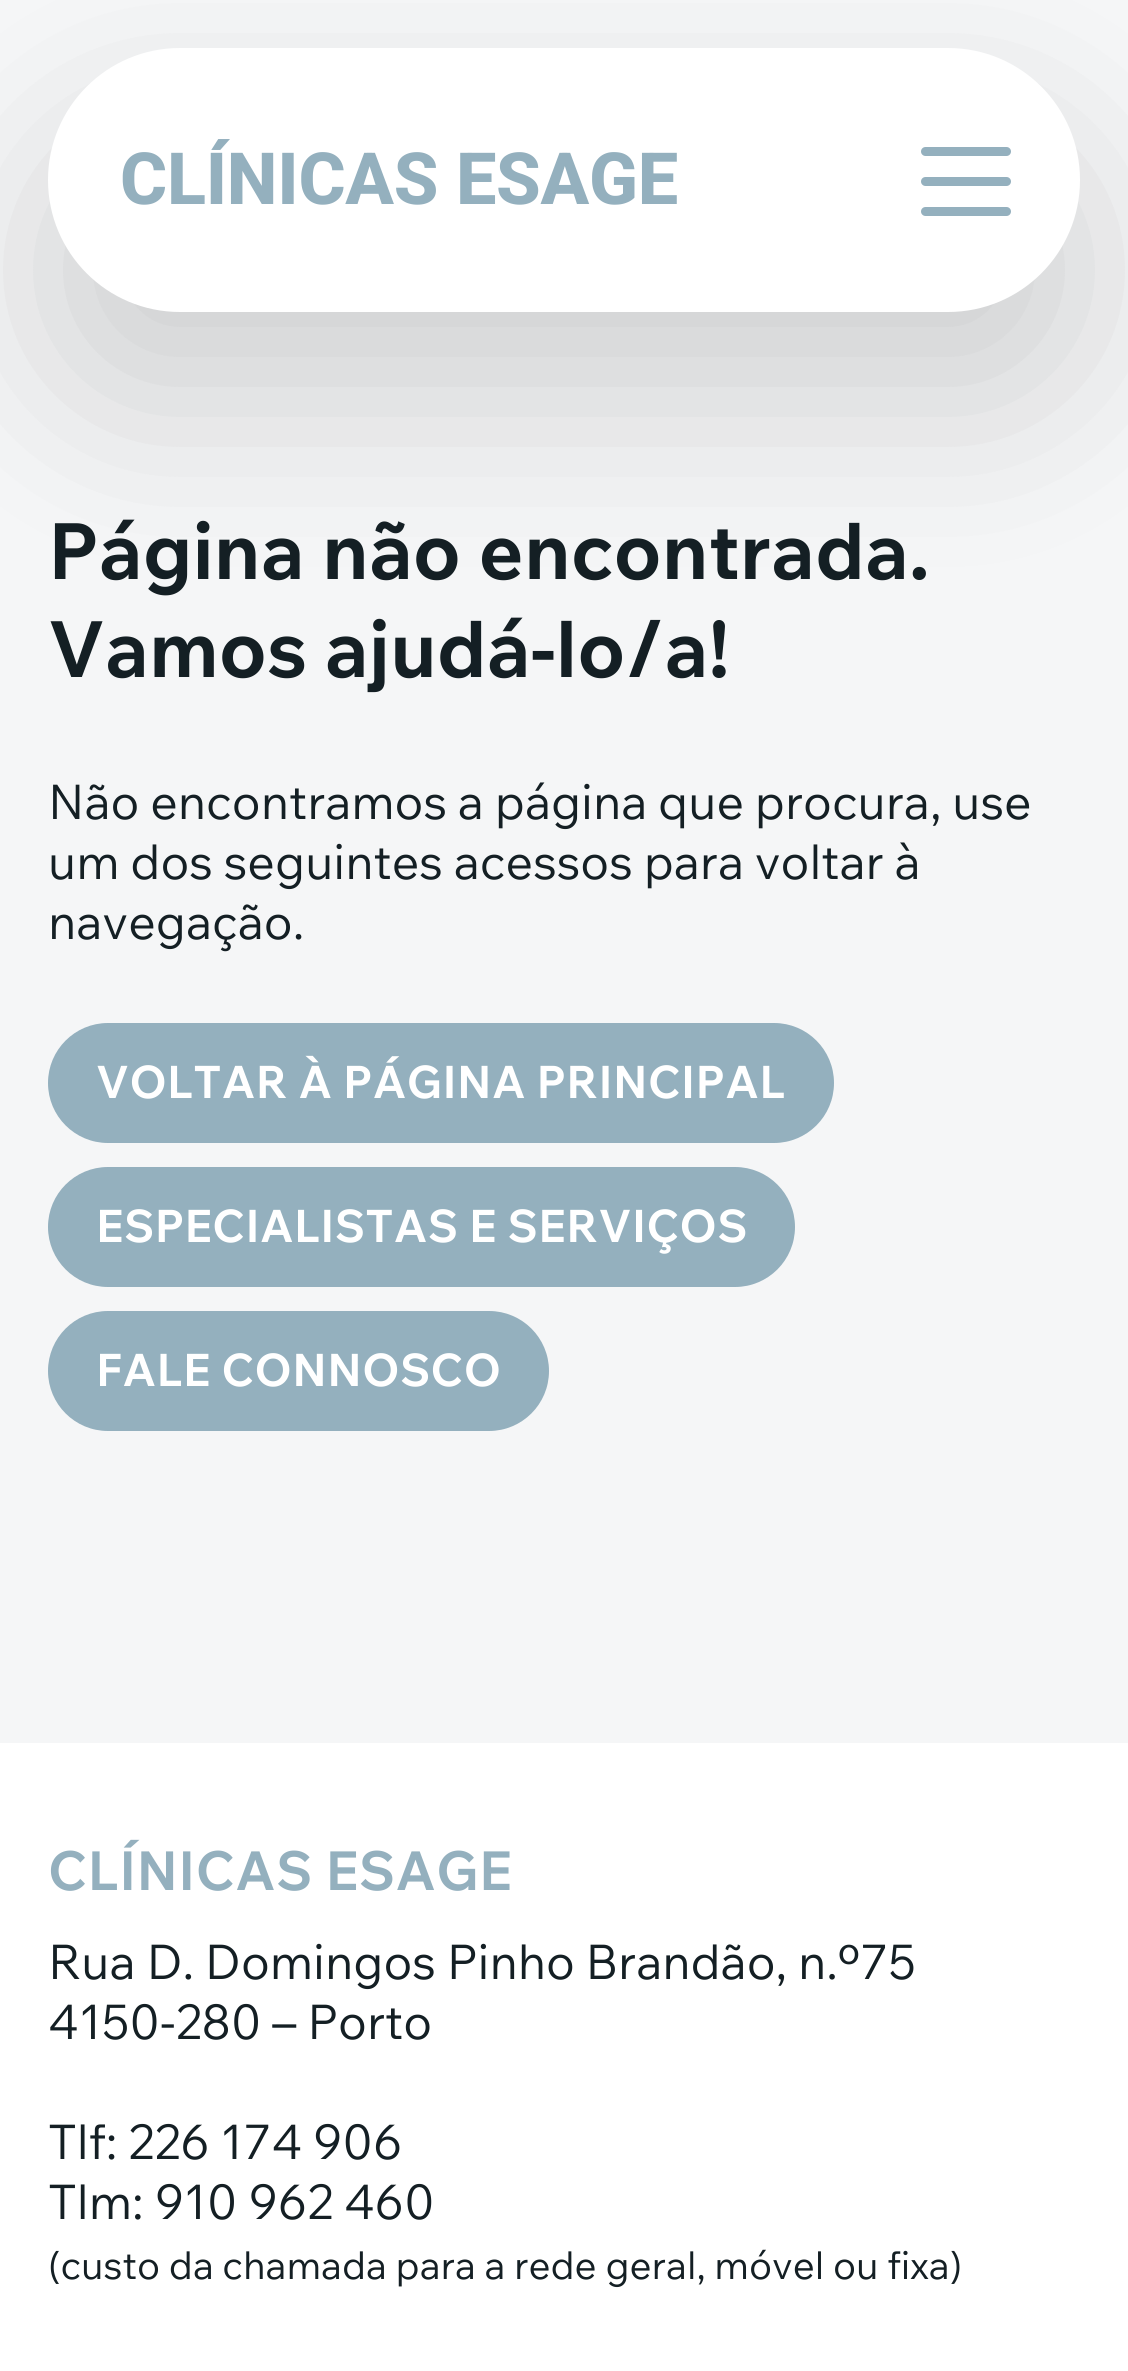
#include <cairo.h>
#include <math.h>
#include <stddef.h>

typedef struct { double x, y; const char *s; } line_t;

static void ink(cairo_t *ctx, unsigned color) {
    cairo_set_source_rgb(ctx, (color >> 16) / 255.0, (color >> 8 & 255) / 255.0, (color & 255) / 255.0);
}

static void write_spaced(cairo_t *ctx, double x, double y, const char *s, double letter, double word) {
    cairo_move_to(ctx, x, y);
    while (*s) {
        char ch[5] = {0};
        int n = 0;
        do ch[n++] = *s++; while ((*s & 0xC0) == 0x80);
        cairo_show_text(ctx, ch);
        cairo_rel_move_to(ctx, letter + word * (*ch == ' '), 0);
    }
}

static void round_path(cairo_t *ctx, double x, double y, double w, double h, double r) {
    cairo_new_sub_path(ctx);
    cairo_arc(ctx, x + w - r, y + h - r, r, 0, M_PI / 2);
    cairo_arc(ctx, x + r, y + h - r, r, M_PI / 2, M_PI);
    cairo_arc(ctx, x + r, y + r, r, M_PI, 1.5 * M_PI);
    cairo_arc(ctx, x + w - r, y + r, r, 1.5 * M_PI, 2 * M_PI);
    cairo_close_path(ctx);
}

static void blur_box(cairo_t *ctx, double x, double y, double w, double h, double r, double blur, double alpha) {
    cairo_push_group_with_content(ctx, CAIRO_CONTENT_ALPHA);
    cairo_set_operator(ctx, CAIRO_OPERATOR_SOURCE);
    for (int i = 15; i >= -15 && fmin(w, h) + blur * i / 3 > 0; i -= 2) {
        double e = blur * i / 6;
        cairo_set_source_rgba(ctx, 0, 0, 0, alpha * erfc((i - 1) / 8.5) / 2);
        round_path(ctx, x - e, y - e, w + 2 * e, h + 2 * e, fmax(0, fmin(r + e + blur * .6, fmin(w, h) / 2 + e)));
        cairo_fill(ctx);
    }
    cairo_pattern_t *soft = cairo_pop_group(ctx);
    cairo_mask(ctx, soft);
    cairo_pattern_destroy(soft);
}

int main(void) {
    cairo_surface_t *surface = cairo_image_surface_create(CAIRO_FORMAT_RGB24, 1128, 2371);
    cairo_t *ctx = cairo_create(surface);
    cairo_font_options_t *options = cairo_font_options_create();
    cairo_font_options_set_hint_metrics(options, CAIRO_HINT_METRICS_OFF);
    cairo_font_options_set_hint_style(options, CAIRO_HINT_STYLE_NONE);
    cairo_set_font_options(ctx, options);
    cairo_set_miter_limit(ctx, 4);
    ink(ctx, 0xF5F6F7);
    cairo_paint(ctx);
    ink(ctx, 0x000000);
    blur_box(ctx, 48, 138, 1032, 264, 132, 90, 0.15);
    ink(ctx, 0xFFFFFF);
    round_path(ctx, 48, 48, 1032, 264, 132);
    cairo_fill(ctx);
    cairo_select_font_face(ctx, "Roboto ExtraBold", CAIRO_FONT_SLANT_NORMAL, CAIRO_FONT_WEIGHT_NORMAL);
    cairo_set_font_size(ctx, 72);
    ink(ctx, 0x94B0BE);
    write_spaced(ctx, 120, 204, "CLÍNICAS ESAGE", -0.25, 0);
    round_path(ctx, 921, 177, 90, 9, 4.5);
    cairo_fill(ctx);
    round_path(ctx, 921, 147, 90, 9, 4.5);
    cairo_fill(ctx);
    round_path(ctx, 921, 207, 90, 9, 4.5);
    cairo_fill(ctx);
    cairo_select_font_face(ctx, "Wix Madefor Text", CAIRO_FONT_SLANT_NORMAL, CAIRO_FONT_WEIGHT_BOLD);
    cairo_set_font_size(ctx, 78);
    ink(ctx, 0x141F24);
    cairo_move_to(ctx, 48, 579);
    cairo_show_text(ctx, "Página não encontrada.");
    cairo_move_to(ctx, 48, 677);
    cairo_show_text(ctx, "Vamos ajudá-lo/a!");
    cairo_select_font_face(ctx, "Wix Madefor Text", CAIRO_FONT_SLANT_NORMAL, CAIRO_FONT_WEIGHT_NORMAL);
    cairo_set_font_size(ctx, 48);
    {
        static const line_t items[] = {
            {48, 819, "Não encontramos a página que procura, use"},
            {48, 879, "um dos seguintes acessos para voltar à"},
            {48, 939, "navegação."},
        };
        for (size_t i = 0; i < sizeof items / sizeof *items; i++) {
            cairo_move_to(ctx, items[i].x, items[i].y);
            cairo_show_text(ctx, items[i].s);
        }
    }
    ink(ctx, 0x94B0BE);
    round_path(ctx, 48, 1023, 786, 120, 60);
    cairo_fill(ctx);
    cairo_select_font_face(ctx, "Wix Madefor Text", CAIRO_FONT_SLANT_NORMAL, CAIRO_FONT_WEIGHT_BOLD);
    cairo_set_font_size(ctx, 45);
    ink(ctx, 0xFFFFFF);
    write_spaced(ctx, 96, 1098, "VOLTAR À PÁGINA PRINCIPAL", 0.45, 0);
    ink(ctx, 0x94B0BE);
    round_path(ctx, 48, 1167, 747, 120, 60);
    cairo_fill(ctx);
    ink(ctx, 0xFFFFFF);
    write_spaced(ctx, 96, 1242, "ESPECIALISTAS E SERVIÇOS", 0.45, 0);
    ink(ctx, 0x94B0BE);
    round_path(ctx, 48, 1311, 501, 120, 60);
    cairo_fill(ctx);
    ink(ctx, 0xFFFFFF);
    write_spaced(ctx, 96, 1386, "FALE CONNOSCO", 0.45, 0);
    cairo_rectangle(ctx, 0, 1743, 1128, 628);
    cairo_fill(ctx);
    cairo_set_font_size(ctx, 54);
    ink(ctx, 0x94B0BE);
    write_spaced(ctx, 48, 1890, "CLÍNICAS ESAGE", 0.45, 0);
    cairo_select_font_face(ctx, "Wix Madefor Text", CAIRO_FONT_SLANT_NORMAL, CAIRO_FONT_WEIGHT_NORMAL);
    cairo_set_font_size(ctx, 48);
    ink(ctx, 0x141F24);
    {
        static const line_t items[] = {
            {48, 1979, "Rua D. Domingos Pinho Brandão, n.º75"},
            {48, 2039, "4150-280 – Porto"},
            {48, 2159, "Tlf: 226 174 906"},
            {48, 2219, "Tlm: 910 962 460"},
        };
        for (size_t i = 0; i < sizeof items / sizeof *items; i++) {
            cairo_move_to(ctx, items[i].x, items[i].y);
            cairo_show_text(ctx, items[i].s);
        }
    }
    cairo_set_font_size(ctx, 38.4);
    cairo_move_to(ctx, 48, 2279);
    cairo_show_text(ctx, "(custo da chamada para a rede geral, móvel ou fixa)");
    cairo_surface_write_to_png(surface, "image.png");
    cairo_font_options_destroy(options);
    cairo_destroy(ctx);
    cairo_surface_destroy(surface);
    return 0;
}
